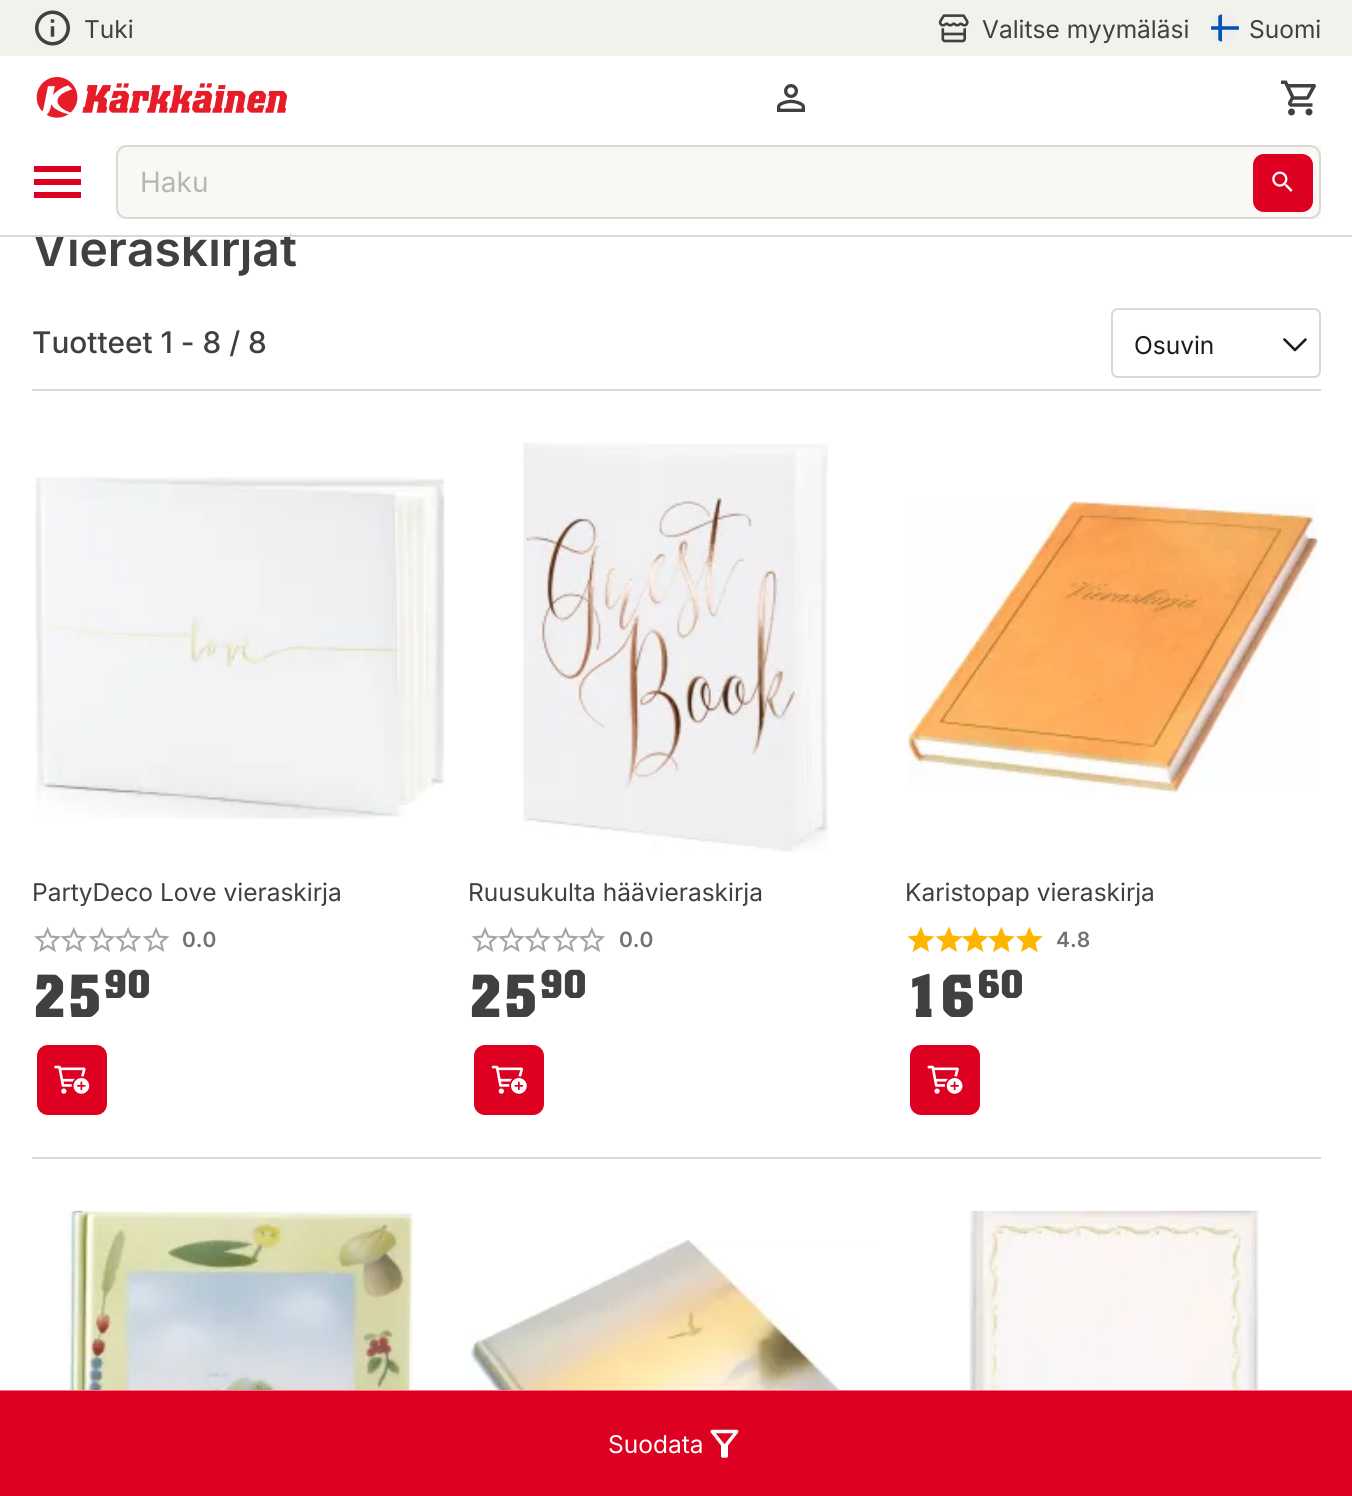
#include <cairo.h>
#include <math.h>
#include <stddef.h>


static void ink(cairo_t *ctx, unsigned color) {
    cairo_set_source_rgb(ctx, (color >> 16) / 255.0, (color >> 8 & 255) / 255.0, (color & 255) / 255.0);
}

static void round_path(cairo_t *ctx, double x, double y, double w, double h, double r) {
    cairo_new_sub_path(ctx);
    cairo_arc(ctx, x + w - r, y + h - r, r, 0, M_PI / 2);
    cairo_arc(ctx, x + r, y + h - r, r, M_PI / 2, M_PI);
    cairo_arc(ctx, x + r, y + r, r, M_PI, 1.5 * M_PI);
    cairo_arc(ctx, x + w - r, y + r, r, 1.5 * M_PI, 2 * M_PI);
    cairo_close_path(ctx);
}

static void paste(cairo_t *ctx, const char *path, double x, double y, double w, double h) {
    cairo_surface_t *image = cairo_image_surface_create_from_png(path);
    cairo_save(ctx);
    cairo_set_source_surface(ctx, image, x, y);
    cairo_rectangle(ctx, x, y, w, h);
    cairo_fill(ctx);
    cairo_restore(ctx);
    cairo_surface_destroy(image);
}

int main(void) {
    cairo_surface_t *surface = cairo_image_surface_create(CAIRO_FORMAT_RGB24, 1352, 1496);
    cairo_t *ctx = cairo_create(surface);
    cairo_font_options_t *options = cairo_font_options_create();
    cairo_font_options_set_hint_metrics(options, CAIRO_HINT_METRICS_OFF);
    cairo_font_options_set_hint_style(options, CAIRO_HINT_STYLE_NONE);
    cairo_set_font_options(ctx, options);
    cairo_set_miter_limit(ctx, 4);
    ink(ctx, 0xFFFFFF);
    cairo_paint(ctx);
    cairo_select_font_face(ctx, "Inter SemiBold", CAIRO_FONT_SLANT_NORMAL, CAIRO_FONT_WEIGHT_NORMAL);
    cairo_set_font_size(ctx, 48);
    ink(ctx, 0x40403E);
    cairo_move_to(ctx, 32, 266);
    cairo_show_text(ctx, "Vieraskirjat");
    ink(ctx, 0xD9D8D4);
    cairo_rectangle(ctx, 0, 235, 1352, 2);
    cairo_fill(ctx);
    ink(ctx, 0xF2F2ED);
    cairo_rectangle(ctx, 0, 0, 1352, 56);
    cairo_fill(ctx);
    paste(ctx, "media/1.png", 35, 10, 35, 36);
    cairo_select_font_face(ctx, "Inter", CAIRO_FONT_SLANT_NORMAL, CAIRO_FONT_WEIGHT_NORMAL);
    cairo_set_font_size(ctx, 24.5);
    ink(ctx, 0x40403E);
    cairo_move_to(ctx, 84, 38);
    cairo_show_text(ctx, "Tuki");
    paste(ctx, "media/2.png", 938, 14, 31, 29);
    cairo_move_to(ctx, 982, 38);
    cairo_show_text(ctx, "Valitse myymäläsi");
    paste(ctx, "media/3.png", 1211, 14, 28, 28);
    cairo_move_to(ctx, 1249, 38);
    cairo_show_text(ctx, "Suomi");
    paste(ctx, "media/4.png", 36, 77, 251, 41);
    paste(ctx, "media/5.png", 777, 84, 28, 28);
    paste(ctx, "media/6.png", 1281, 80, 35, 36);
    ink(ctx, 0xFFFFFF);
    cairo_rectangle(ctx, 32, 229, 258, 6);
    cairo_fill(ctx);
    ink(ctx, 0xDE0021);
    cairo_new_path(ctx);
    cairo_move_to(ctx, 34, 198);
    cairo_line_to(ctx, 81, 198);
    cairo_line_to(ctx, 81, 192);
    cairo_line_to(ctx, 34, 192);
    cairo_close_path(ctx);
    cairo_move_to(ctx, 34, 185);
    cairo_line_to(ctx, 81, 185);
    cairo_line_to(ctx, 81, 179);
    cairo_line_to(ctx, 34, 179);
    cairo_close_path(ctx);
    cairo_move_to(ctx, 34, 166);
    cairo_line_to(ctx, 34, 172);
    cairo_line_to(ctx, 81, 172);
    cairo_line_to(ctx, 81, 166);
    cairo_close_path(ctx);
    cairo_fill(ctx);
    ink(ctx, 0xF9F8F4);
    cairo_rectangle(ctx, 116, 145, 1205, 74);
    cairo_fill(ctx);
    ink(ctx, 0xDE0021);
    round_path(ctx, 1253, 154, 60, 58, 11);
    cairo_fill(ctx);
    paste(ctx, "media/7.png", 1272, 171, 21, 21);
    round_path(ctx, 117, 146, 1203, 72, 10);
    ink(ctx, 0xD9D8D4);
    cairo_stroke(ctx);
    cairo_set_font_size(ctx, 28);
    ink(ctx, 0xB7B6B2);
    cairo_move_to(ctx, 140, 192);
    cairo_show_text(ctx, "Haku");
    ink(ctx, 0xD9D8D4);
    cairo_rectangle(ctx, 32, 389, 1289, 2);
    cairo_fill(ctx);
    cairo_select_font_face(ctx, "Inter Medium", CAIRO_FONT_SLANT_NORMAL, CAIRO_FONT_WEIGHT_NORMAL);
    cairo_set_font_size(ctx, 29.75);
    ink(ctx, 0x40403E);
    cairo_move_to(ctx, 32, 353);
    cairo_show_text(ctx, "Tuotteet 1 - 8 / 8");
    round_path(ctx, 1112, 309, 208, 68, 6);
    ink(ctx, 0xD9D8D4);
    cairo_stroke(ctx);
    cairo_select_font_face(ctx, "Inter", CAIRO_FONT_SLANT_NORMAL, CAIRO_FONT_WEIGHT_NORMAL);
    cairo_set_font_size(ctx, 24.5);
    ink(ctx, 0x1D1C1C);
    cairo_move_to(ctx, 1134, 354);
    cairo_show_text(ctx, "Osuvin");
    paste(ctx, "media/8.png", 1283, 338, 24, 14);
    paste(ctx, "media/9.png", 35, 477, 410, 342);
    ink(ctx, 0x40403E);
    cairo_move_to(ctx, 32, 901);
    cairo_show_text(ctx, "PartyDeco Love vieraskirja");
    paste(ctx, "media/10.png", 34, 926, 27, 26);
    paste(ctx, "media/11.png", 60, 926, 27, 26);
    paste(ctx, "media/12.png", 88, 926, 27, 26);
    paste(ctx, "media/13.png", 115, 927, 27, 25);
    paste(ctx, "media/14.png", 142, 927, 28, 25);
    cairo_select_font_face(ctx, "Inter SemiBold", CAIRO_FONT_SLANT_NORMAL, CAIRO_FONT_WEIGHT_NORMAL);
    cairo_set_font_size(ctx, 21);
    ink(ctx, 0x737270);
    cairo_move_to(ctx, 182, 947);
    cairo_show_text(ctx, "0.0");
    cairo_select_font_face(ctx, "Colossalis", CAIRO_FONT_SLANT_NORMAL, CAIRO_FONT_WEIGHT_BOLD);
    cairo_set_font_size(ctx, 60);
    ink(ctx, 0x40403E);
    cairo_move_to(ctx, 32, 1017);
    cairo_show_text(ctx, "25");
    cairo_set_font_size(ctx, 40);
    cairo_move_to(ctx, 104, 998);
    cairo_show_text(ctx, "90");
    ink(ctx, 0xDE0021);
    round_path(ctx, 37, 1045, 70, 70, 11);
    cairo_fill(ctx);
    paste(ctx, "media/15.png", 54, 1065, 36, 29);
    paste(ctx, "media/16.png", 523, 442, 305, 410);
    cairo_select_font_face(ctx, "Inter", CAIRO_FONT_SLANT_NORMAL, CAIRO_FONT_WEIGHT_NORMAL);
    cairo_set_font_size(ctx, 24.5);
    ink(ctx, 0x40403E);
    cairo_move_to(ctx, 468, 901);
    cairo_show_text(ctx, "Ruusukulta häävieraskirja");
    paste(ctx, "media/14.png", 471, 927, 28, 25);
    paste(ctx, "media/17.png", 498, 926, 27, 26);
    paste(ctx, "media/18.png", 524, 926, 27, 26);
    paste(ctx, "media/10.png", 552, 926, 27, 26);
    paste(ctx, "media/11.png", 578, 926, 27, 26);
    cairo_select_font_face(ctx, "Inter SemiBold", CAIRO_FONT_SLANT_NORMAL, CAIRO_FONT_WEIGHT_NORMAL);
    cairo_set_font_size(ctx, 21);
    ink(ctx, 0x737270);
    cairo_move_to(ctx, 619, 947);
    cairo_show_text(ctx, "0.0");
    cairo_select_font_face(ctx, "Colossalis", CAIRO_FONT_SLANT_NORMAL, CAIRO_FONT_WEIGHT_BOLD);
    cairo_set_font_size(ctx, 60);
    ink(ctx, 0x40403E);
    cairo_move_to(ctx, 468, 1017);
    cairo_show_text(ctx, "25");
    cairo_set_font_size(ctx, 40);
    cairo_move_to(ctx, 540, 998);
    cairo_show_text(ctx, "90");
    ink(ctx, 0xDE0021);
    round_path(ctx, 474, 1045, 70, 70, 11);
    cairo_fill(ctx);
    paste(ctx, "media/19.png", 491, 1065, 36, 29);
    paste(ctx, "media/20.png", 908, 501, 410, 292);
    cairo_select_font_face(ctx, "Inter", CAIRO_FONT_SLANT_NORMAL, CAIRO_FONT_WEIGHT_NORMAL);
    cairo_set_font_size(ctx, 24.5);
    ink(ctx, 0x40403E);
    cairo_move_to(ctx, 905, 901);
    cairo_show_text(ctx, "Karistopap vieraskirja");
    ink(ctx, 0xFFB400);
    cairo_new_path(ctx);
    cairo_move_to(ctx, 921, 947);
    cairo_line_to(ctx, 929, 952);
    cairo_line_to(ctx, 927, 942.5);
    cairo_line_to(ctx, 934.5, 936.5);
    cairo_line_to(ctx, 924.5, 935.5);
    cairo_line_to(ctx, 921, 926.5);
    cairo_line_to(ctx, 917, 935.5);
    cairo_line_to(ctx, 907.5, 936.5);
    cairo_line_to(ctx, 915, 942.5);
    cairo_line_to(ctx, 912.5, 952);
    cairo_close_path(ctx);
    cairo_move_to(ctx, 949, 947);
    cairo_line_to(ctx, 957, 952);
    cairo_line_to(ctx, 955, 942.5);
    cairo_line_to(ctx, 962.5, 936.5);
    cairo_line_to(ctx, 952.5, 935.5);
    cairo_line_to(ctx, 949, 926.5);
    cairo_line_to(ctx, 945, 935.5);
    cairo_line_to(ctx, 935.5, 936.5);
    cairo_line_to(ctx, 943, 942.5);
    cairo_line_to(ctx, 940.5, 952);
    cairo_close_path(ctx);
    cairo_fill(ctx);
    cairo_new_path(ctx);
    cairo_move_to(ctx, 975, 947);
    cairo_line_to(ctx, 983.5, 952);
    cairo_line_to(ctx, 981, 942.5);
    cairo_line_to(ctx, 988.5, 936.5);
    cairo_line_to(ctx, 979, 935.5);
    cairo_line_to(ctx, 975, 926.5);
    cairo_line_to(ctx, 971.5, 935.5);
    cairo_line_to(ctx, 961.5, 936.5);
    cairo_line_to(ctx, 969, 942.5);
    cairo_line_to(ctx, 967, 952);
    cairo_close_path(ctx);
    cairo_fill(ctx);
    paste(ctx, "media/21.png", 988, 926, 27, 26);
    paste(ctx, "media/22.png", 1016, 926, 27, 26);
    cairo_select_font_face(ctx, "Inter SemiBold", CAIRO_FONT_SLANT_NORMAL, CAIRO_FONT_WEIGHT_NORMAL);
    cairo_set_font_size(ctx, 21);
    ink(ctx, 0x737270);
    cairo_move_to(ctx, 1056, 947);
    cairo_show_text(ctx, "4.8");
    cairo_select_font_face(ctx, "Colossalis", CAIRO_FONT_SLANT_NORMAL, CAIRO_FONT_WEIGHT_BOLD);
    cairo_set_font_size(ctx, 60);
    ink(ctx, 0x40403E);
    cairo_move_to(ctx, 905, 1017);
    cairo_show_text(ctx, "16");
    cairo_set_font_size(ctx, 40);
    cairo_move_to(ctx, 977, 998);
    cairo_show_text(ctx, "60");
    ink(ctx, 0xDE0021);
    round_path(ctx, 910, 1045, 70, 70, 11);
    cairo_fill(ctx);
    paste(ctx, "media/23.png", 927, 1065, 36, 29);
    ink(ctx, 0xD9D8D4);
    cairo_rectangle(ctx, 32, 1157, 1289, 2);
    cairo_fill(ctx);
    paste(ctx, "media/24.png", 66, 1210, 348, 180);
    paste(ctx, "media/25.png", 471, 1240, 409, 150);
    paste(ctx, "media/26.png", 969, 1210, 290, 180);
    ink(ctx, 0xFF6E83);
    cairo_rectangle(ctx, 0, 1390, 1352, 1);
    cairo_fill(ctx);
    ink(ctx, 0xDE0021);
    cairo_rectangle(ctx, 0, 1391, 1352, 105);
    cairo_fill(ctx);
    cairo_select_font_face(ctx, "Inter", CAIRO_FONT_SLANT_NORMAL, CAIRO_FONT_WEIGHT_NORMAL);
    cairo_set_font_size(ctx, 24.5);
    ink(ctx, 0xFFFFFF);
    cairo_move_to(ctx, 608, 1453);
    cairo_show_text(ctx, "Suodata");
    paste(ctx, "media/27.png", 710, 1429, 29, 29);
    cairo_surface_write_to_png(surface, "image.png");
    cairo_font_options_destroy(options);
    cairo_destroy(ctx);
    cairo_surface_destroy(surface);
    return 0;
}
